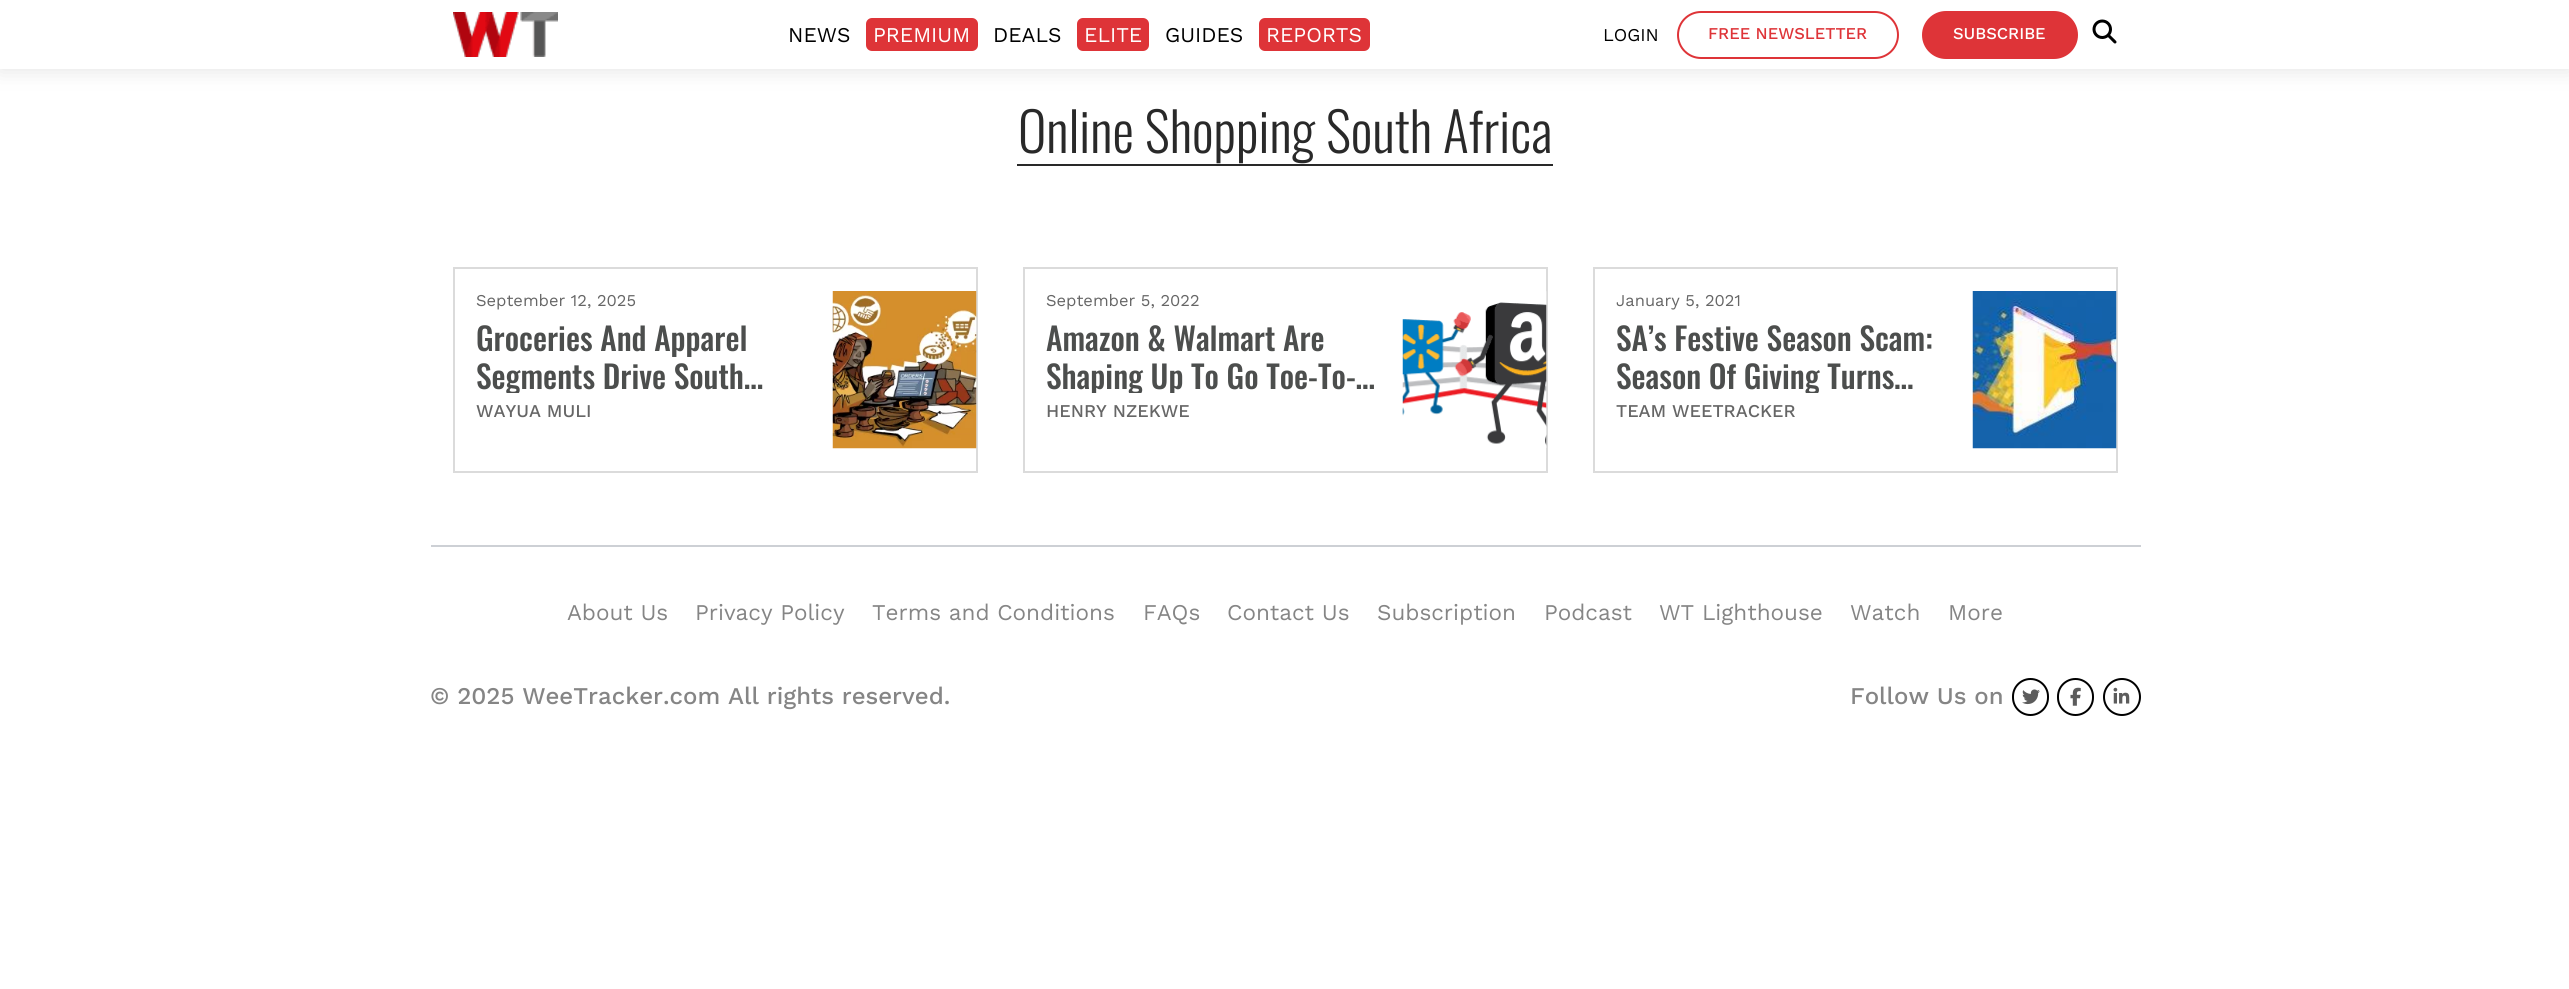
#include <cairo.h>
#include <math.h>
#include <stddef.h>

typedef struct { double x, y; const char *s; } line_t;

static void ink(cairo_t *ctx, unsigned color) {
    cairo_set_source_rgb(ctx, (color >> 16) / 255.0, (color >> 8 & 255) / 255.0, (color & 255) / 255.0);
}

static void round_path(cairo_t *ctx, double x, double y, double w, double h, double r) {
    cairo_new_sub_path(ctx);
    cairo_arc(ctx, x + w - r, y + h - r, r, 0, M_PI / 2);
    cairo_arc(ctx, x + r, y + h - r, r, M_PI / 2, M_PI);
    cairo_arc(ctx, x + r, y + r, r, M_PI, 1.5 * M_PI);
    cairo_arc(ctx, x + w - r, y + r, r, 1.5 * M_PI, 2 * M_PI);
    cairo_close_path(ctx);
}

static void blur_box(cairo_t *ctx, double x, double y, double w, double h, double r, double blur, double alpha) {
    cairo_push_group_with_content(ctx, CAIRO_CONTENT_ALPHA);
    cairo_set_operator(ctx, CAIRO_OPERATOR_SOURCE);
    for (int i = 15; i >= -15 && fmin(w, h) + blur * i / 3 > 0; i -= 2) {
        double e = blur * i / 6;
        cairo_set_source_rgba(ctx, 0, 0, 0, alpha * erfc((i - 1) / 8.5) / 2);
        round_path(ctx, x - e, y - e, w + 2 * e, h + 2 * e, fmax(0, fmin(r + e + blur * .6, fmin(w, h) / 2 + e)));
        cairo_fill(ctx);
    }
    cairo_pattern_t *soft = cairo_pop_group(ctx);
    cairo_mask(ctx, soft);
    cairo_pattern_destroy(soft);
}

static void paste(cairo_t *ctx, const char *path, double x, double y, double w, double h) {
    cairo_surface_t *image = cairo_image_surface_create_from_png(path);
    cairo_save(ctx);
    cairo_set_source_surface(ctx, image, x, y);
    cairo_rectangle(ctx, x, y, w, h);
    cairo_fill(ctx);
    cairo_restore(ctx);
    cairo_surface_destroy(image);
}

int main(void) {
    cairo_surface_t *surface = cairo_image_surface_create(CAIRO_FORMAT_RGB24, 2569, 989);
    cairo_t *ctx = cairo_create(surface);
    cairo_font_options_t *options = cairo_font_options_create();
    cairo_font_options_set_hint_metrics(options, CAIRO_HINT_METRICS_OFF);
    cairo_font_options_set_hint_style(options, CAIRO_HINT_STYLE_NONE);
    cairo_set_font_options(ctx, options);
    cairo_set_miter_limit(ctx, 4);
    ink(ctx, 0xFFFFFF);
    cairo_paint(ctx);
    cairo_save(ctx);
    cairo_rectangle(ctx, 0, 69, 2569, 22);
    cairo_clip(ctx);
    ink(ctx, 0xE1E1E1);
    blur_box(ctx, 0, 0, 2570, 69, 0, 10.5, 1);
    cairo_restore(ctx);
    paste(ctx, "media/1.png", 453, 12, 105, 45);
    cairo_select_font_face(ctx, "Work Sans", CAIRO_FONT_SLANT_NORMAL, CAIRO_FONT_WEIGHT_NORMAL);
    cairo_set_font_size(ctx, 21);
    ink(ctx, 0x000000);
    cairo_move_to(ctx, 788, 42);
    cairo_show_text(ctx, "NEWS");
    ink(ctx, 0xDE3438);
    round_path(ctx, 866, 18, 112, 33, 6);
    cairo_fill(ctx);
    ink(ctx, 0xFFFFFF);
    cairo_move_to(ctx, 873, 42);
    cairo_show_text(ctx, "PREMIUM");
    ink(ctx, 0x000000);
    cairo_move_to(ctx, 993, 42);
    cairo_show_text(ctx, "DEALS");
    ink(ctx, 0xDE3438);
    round_path(ctx, 1077, 18, 72, 33, 6);
    cairo_fill(ctx);
    ink(ctx, 0xFFFFFF);
    cairo_move_to(ctx, 1084, 42);
    cairo_show_text(ctx, "ELITE");
    ink(ctx, 0x000000);
    cairo_move_to(ctx, 1165, 42);
    cairo_show_text(ctx, "GUIDES");
    ink(ctx, 0xDE3438);
    round_path(ctx, 1259, 18, 111, 33, 6);
    cairo_fill(ctx);
    ink(ctx, 0xFFFFFF);
    cairo_move_to(ctx, 1266, 42);
    cairo_show_text(ctx, "REPORTS");
    cairo_set_font_size(ctx, 18);
    ink(ctx, 0x000000);
    cairo_move_to(ctx, 1603, 41);
    cairo_show_text(ctx, "LOGIN");
    round_path(ctx, 1678, 12, 220, 46, 23);
    ink(ctx, 0xDE3438);
    cairo_stroke(ctx);
    cairo_select_font_face(ctx, "Work Sans Medium", CAIRO_FONT_SLANT_NORMAL, CAIRO_FONT_WEIGHT_NORMAL);
    cairo_set_font_size(ctx, 16.5);
    cairo_move_to(ctx, 1708, 39);
    cairo_show_text(ctx, "FREE NEWSLETTER");
    round_path(ctx, 1923, 12, 154, 46, 23);
    cairo_fill_preserve(ctx);
    cairo_stroke(ctx);
    ink(ctx, 0xFFFFFF);
    cairo_move_to(ctx, 1953, 39);
    cairo_show_text(ctx, "SUBSCRIBE");
    paste(ctx, "media/2.png", 2092, 19, 25, 25);
    ink(ctx, 0x292929);
    cairo_rectangle(ctx, 1017, 164, 536, 2);
    cairo_fill(ctx);
    cairo_select_font_face(ctx, "Oswald Light", CAIRO_FONT_SLANT_NORMAL, CAIRO_FONT_WEIGHT_NORMAL);
    cairo_set_font_size(ctx, 54);
    cairo_move_to(ctx, 1018, 153);
    cairo_show_text(ctx, "Online Shopping South Africa");
    cairo_rectangle(ctx, 454, 268, 523, 204);
    ink(ctx, 0xDBDBDB);
    cairo_stroke(ctx);
    cairo_select_font_face(ctx, "Work Sans", CAIRO_FONT_SLANT_NORMAL, CAIRO_FONT_WEIGHT_NORMAL);
    cairo_set_font_size(ctx, 16.5);
    ink(ctx, 0x666666);
    cairo_move_to(ctx, 476, 306);
    cairo_show_text(ctx, "September 12, 2025");
    cairo_select_font_face(ctx, "Oswald Medium", CAIRO_FONT_SLANT_NORMAL, CAIRO_FONT_WEIGHT_NORMAL);
    cairo_set_font_size(ctx, 31.5);
    ink(ctx, 0x4C4E4D);
    cairo_move_to(ctx, 476, 351);
    cairo_show_text(ctx, "Groceries And Apparel");
    cairo_save(ctx);
    cairo_rectangle(ctx, 477, 318, 336, 75);
    cairo_clip(ctx);
    cairo_move_to(ctx, 476, 389);
    cairo_show_text(ctx, "Segments Drive South…");
    cairo_restore(ctx);
    cairo_select_font_face(ctx, "Work Sans Medium", CAIRO_FONT_SLANT_NORMAL, CAIRO_FONT_WEIGHT_NORMAL);
    cairo_set_font_size(ctx, 18);
    ink(ctx, 0x666666);
    cairo_move_to(ctx, 476, 417);
    cairo_show_text(ctx, "WAYUA MULI");
    paste(ctx, "media/3.png", 832, 291, 145, 158);
    cairo_rectangle(ctx, 1024, 268, 523, 204);
    ink(ctx, 0xDBDBDB);
    cairo_stroke(ctx);
    cairo_select_font_face(ctx, "Work Sans", CAIRO_FONT_SLANT_NORMAL, CAIRO_FONT_WEIGHT_NORMAL);
    cairo_set_font_size(ctx, 16.5);
    ink(ctx, 0x666666);
    cairo_move_to(ctx, 1046, 306);
    cairo_show_text(ctx, "September 5, 2022");
    cairo_select_font_face(ctx, "Oswald Medium", CAIRO_FONT_SLANT_NORMAL, CAIRO_FONT_WEIGHT_NORMAL);
    cairo_set_font_size(ctx, 31.5);
    ink(ctx, 0x4C4E4D);
    cairo_move_to(ctx, 1046, 351);
    cairo_show_text(ctx, "Amazon & Walmart Are");
    cairo_save(ctx);
    cairo_rectangle(ctx, 1047, 318, 336, 75);
    cairo_clip(ctx);
    cairo_move_to(ctx, 1046, 389);
    cairo_show_text(ctx, "Shaping Up To Go Toe-To-…");
    cairo_restore(ctx);
    cairo_select_font_face(ctx, "Work Sans Medium", CAIRO_FONT_SLANT_NORMAL, CAIRO_FONT_WEIGHT_NORMAL);
    cairo_set_font_size(ctx, 18);
    ink(ctx, 0x666666);
    cairo_move_to(ctx, 1046, 417);
    cairo_show_text(ctx, "HENRY NZEKWE");
    paste(ctx, "media/4.png", 1402, 291, 145, 157);
    cairo_rectangle(ctx, 1594, 268, 523, 204);
    ink(ctx, 0xDBDBDB);
    cairo_stroke(ctx);
    cairo_select_font_face(ctx, "Work Sans", CAIRO_FONT_SLANT_NORMAL, CAIRO_FONT_WEIGHT_NORMAL);
    cairo_set_font_size(ctx, 16.5);
    ink(ctx, 0x666666);
    cairo_move_to(ctx, 1616, 306);
    cairo_show_text(ctx, "January 5, 2021");
    cairo_select_font_face(ctx, "Oswald Medium", CAIRO_FONT_SLANT_NORMAL, CAIRO_FONT_WEIGHT_NORMAL);
    cairo_set_font_size(ctx, 31.5);
    ink(ctx, 0x4C4E4D);
    cairo_move_to(ctx, 1616, 351);
    cairo_show_text(ctx, "SA’s Festive Season Scam:");
    cairo_save(ctx);
    cairo_rectangle(ctx, 1617, 318, 336, 75);
    cairo_clip(ctx);
    cairo_move_to(ctx, 1616, 389);
    cairo_show_text(ctx, "Season Of Giving Turns…");
    cairo_restore(ctx);
    cairo_select_font_face(ctx, "Work Sans Medium", CAIRO_FONT_SLANT_NORMAL, CAIRO_FONT_WEIGHT_NORMAL);
    cairo_set_font_size(ctx, 18);
    ink(ctx, 0x666666);
    cairo_move_to(ctx, 1616, 417);
    cairo_show_text(ctx, "TEAM WEETRACKER");
    paste(ctx, "media/5.png", 1972, 291, 145, 158);
    ink(ctx, 0xCDD0D5);
    cairo_rectangle(ctx, 431, 545, 1710, 2);
    cairo_fill(ctx);
    cairo_select_font_face(ctx, "Work Sans", CAIRO_FONT_SLANT_NORMAL, CAIRO_FONT_WEIGHT_NORMAL);
    cairo_set_font_size(ctx, 22.5);
    ink(ctx, 0x858585);
    {
        static const line_t items[] = {
            {567, 620, "About Us"},
            {695, 620, "Privacy Policy"},
            {872, 620, "Terms and Conditions"},
            {1143, 620, "FAQs"},
            {1227, 620, "Contact Us"},
            {1377, 620, "Subscription"},
            {1544, 620, "Podcast"},
            {1659, 620, "WT Lighthouse"},
            {1850, 620, "Watch"},
            {1948, 620, "More"},
        };
        for (size_t i = 0; i < sizeof items / sizeof *items; i++) {
            cairo_move_to(ctx, items[i].x, items[i].y);
            cairo_show_text(ctx, items[i].s);
        }
    }
    cairo_select_font_face(ctx, "Work Sans Medium", CAIRO_FONT_SLANT_NORMAL, CAIRO_FONT_WEIGHT_NORMAL);
    cairo_set_font_size(ctx, 24);
    cairo_move_to(ctx, 430, 704);
    cairo_show_text(ctx, "© 2025 WeeTracker.com All rights reserved.");
    cairo_move_to(ctx, 1850, 704);
    cairo_show_text(ctx, "Follow Us on");
    round_path(ctx, 2013, 679, 35, 36, 17.5);
    ink(ctx, 0x000000);
    cairo_stroke(ctx);
    paste(ctx, "media/6.png", 2022, 689, 18, 16);
    round_path(ctx, 2058, 679, 35, 36, 17.5);
    cairo_stroke(ctx);
    paste(ctx, "media/7.png", 2070, 687, 11, 19);
    cairo_arc(ctx, 2122, 697, 18, 0, 2 * M_PI);
    cairo_stroke(ctx);
    paste(ctx, "media/8.png", 2113, 687, 17, 17);
    cairo_surface_write_to_png(surface, "image.png");
    cairo_font_options_destroy(options);
    cairo_destroy(ctx);
    cairo_surface_destroy(surface);
    return 0;
}
